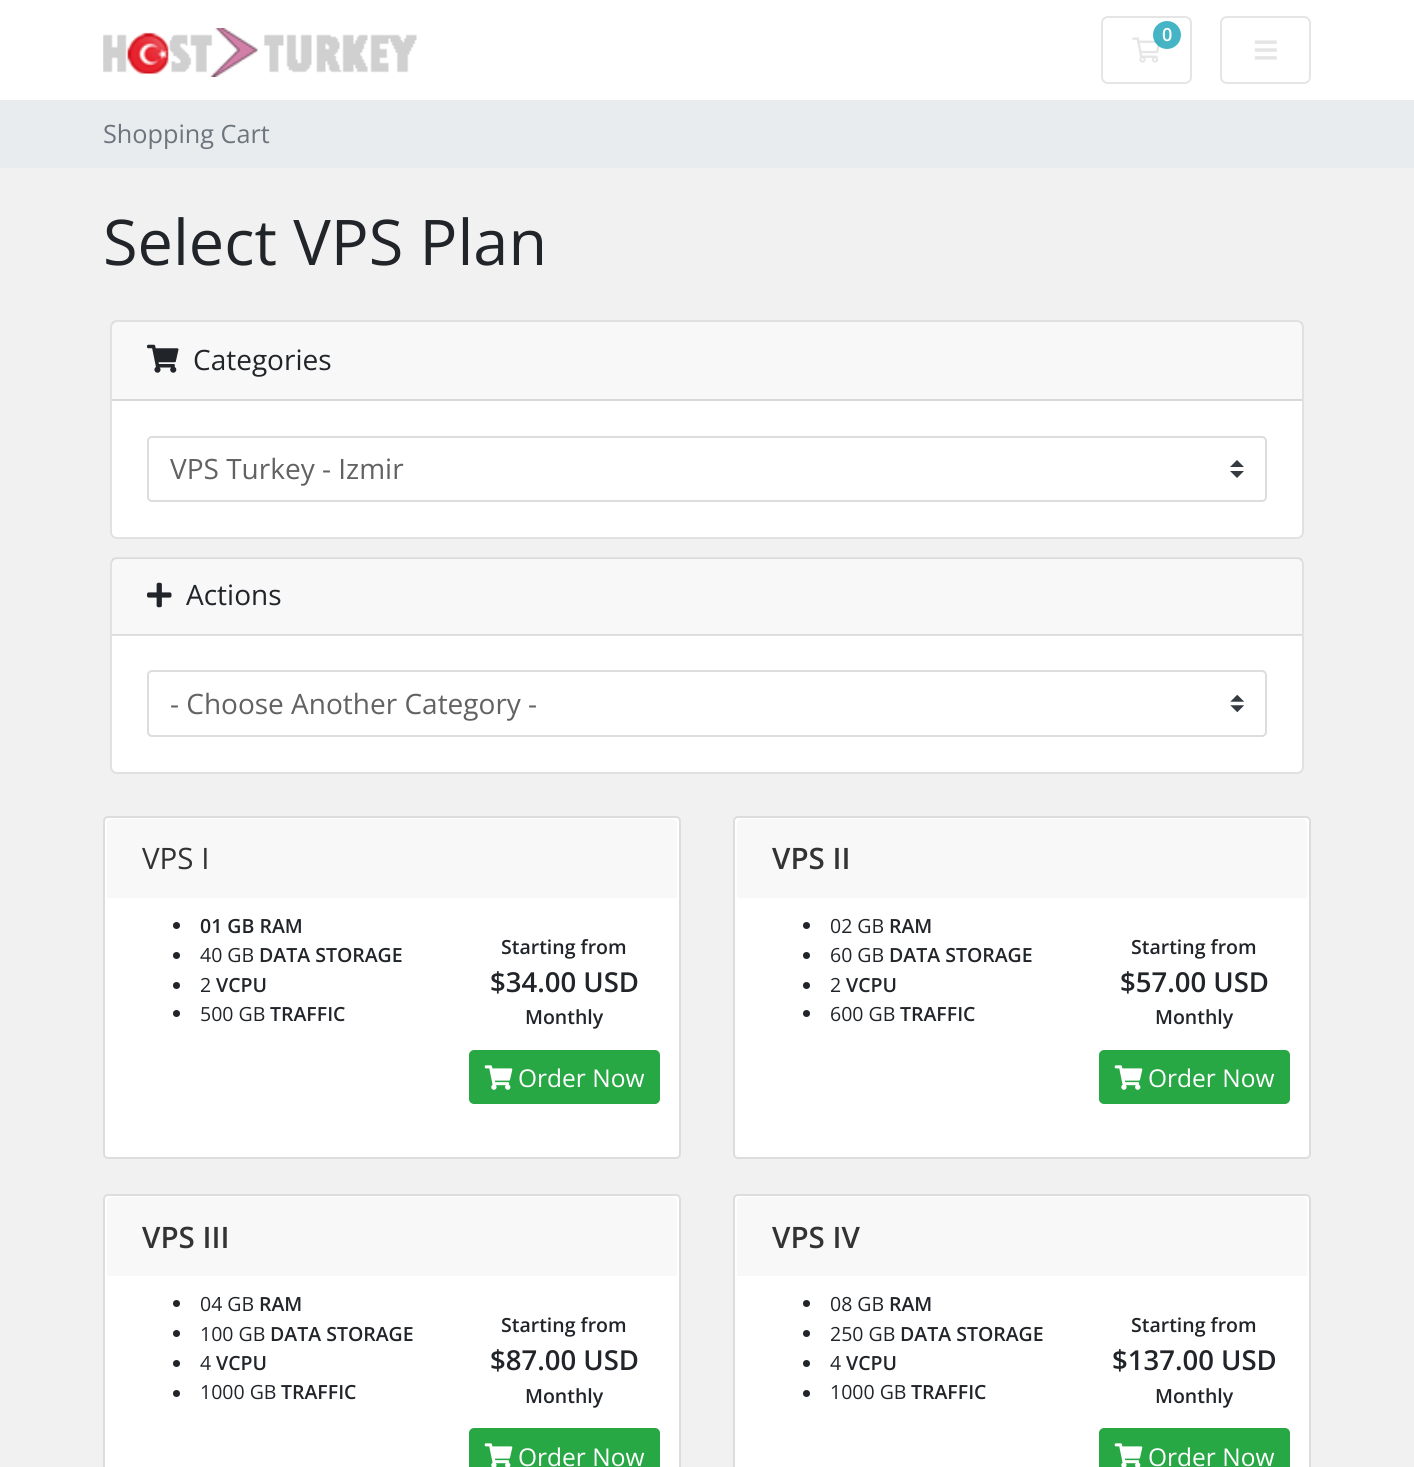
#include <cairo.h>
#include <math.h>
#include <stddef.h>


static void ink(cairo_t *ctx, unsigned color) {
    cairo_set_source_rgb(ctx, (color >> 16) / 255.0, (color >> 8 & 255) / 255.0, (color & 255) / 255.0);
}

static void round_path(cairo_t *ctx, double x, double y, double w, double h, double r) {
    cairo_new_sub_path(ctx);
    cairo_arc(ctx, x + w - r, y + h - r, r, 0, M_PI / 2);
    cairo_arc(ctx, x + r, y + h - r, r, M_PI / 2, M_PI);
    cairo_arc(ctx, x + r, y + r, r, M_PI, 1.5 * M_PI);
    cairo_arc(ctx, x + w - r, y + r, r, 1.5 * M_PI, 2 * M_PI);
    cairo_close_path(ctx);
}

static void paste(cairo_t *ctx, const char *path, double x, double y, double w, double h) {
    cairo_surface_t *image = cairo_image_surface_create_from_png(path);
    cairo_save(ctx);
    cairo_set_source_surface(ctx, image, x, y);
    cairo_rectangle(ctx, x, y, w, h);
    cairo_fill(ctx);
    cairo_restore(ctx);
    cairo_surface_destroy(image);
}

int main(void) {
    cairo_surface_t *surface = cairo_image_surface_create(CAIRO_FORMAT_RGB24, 1414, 1467);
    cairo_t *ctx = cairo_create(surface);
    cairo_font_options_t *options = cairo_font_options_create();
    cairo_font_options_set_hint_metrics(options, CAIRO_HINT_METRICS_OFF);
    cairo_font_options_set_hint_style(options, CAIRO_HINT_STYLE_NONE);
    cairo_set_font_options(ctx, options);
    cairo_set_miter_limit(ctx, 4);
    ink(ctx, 0xF1F1F1);
    cairo_paint(ctx);
    ink(ctx, 0xFFFFFF);
    cairo_rectangle(ctx, 0, 0, 1414, 100);
    cairo_fill(ctx);
    paste(ctx, "media/1.png", 103, 28, 314, 49);
    round_path(ctx, 1102, 17, 89, 66, 6);
    ink(ctx, 0xE5E5E5);
    cairo_stroke(ctx);
    paste(ctx, "media/2.png", 1132, 37, 29, 26);
    cairo_set_source_rgba(ctx, 0.09, 0.635, 0.722, 0.8);
    cairo_arc(ctx, 1167, 35, 14, 0, 2 * M_PI);
    cairo_fill(ctx);
    cairo_select_font_face(ctx, "Open Sans SemiBold", CAIRO_FONT_SLANT_NORMAL, CAIRO_FONT_WEIGHT_NORMAL);
    cairo_set_font_size(ctx, 18);
    ink(ctx, 0xFFFFFF);
    cairo_move_to(ctx, 1162, 41);
    cairo_show_text(ctx, "0");
    round_path(ctx, 1221, 17, 89, 66, 6);
    ink(ctx, 0xE5E5E5);
    cairo_stroke(ctx);
    paste(ctx, "media/3.png", 1254, 40, 23, 20);
    ink(ctx, 0xE9ECEF);
    cairo_rectangle(ctx, 0, 100, 1414, 68);
    cairo_fill(ctx);
    cairo_select_font_face(ctx, "Open Sans", CAIRO_FONT_SLANT_NORMAL, CAIRO_FONT_WEIGHT_NORMAL);
    cairo_set_font_size(ctx, 25.25);
    ink(ctx, 0x6C757D);
    cairo_move_to(ctx, 103, 143);
    cairo_show_text(ctx, "Shopping Cart");
    cairo_set_font_size(ctx, 63);
    ink(ctx, 0x212529);
    cairo_move_to(ctx, 103, 265);
    cairo_show_text(ctx, "Select VPS Plan");
    ink(ctx, 0xFFFFFF);
    round_path(ctx, 110, 320, 1194, 219, 7);
    cairo_fill(ctx);
    round_path(ctx, 111, 321, 1192, 217, 6);
    cairo_set_source_rgba(ctx, 0, 0, 0, 0.12);
    cairo_stroke(ctx);
    cairo_set_source_rgba(ctx, 0, 0, 0, 0.03);
    cairo_rectangle(ctx, 112, 322, 1190, 77);
    cairo_fill(ctx);
    ink(ctx, 0xD8D8D8);
    cairo_rectangle(ctx, 112, 399, 1190, 2);
    cairo_fill(ctx);
    paste(ctx, "media/4.png", 147, 344, 32, 29);
    cairo_set_font_size(ctx, 28);
    ink(ctx, 0x212529);
    cairo_move_to(ctx, 193, 370);
    cairo_show_text(ctx, "Categories");
    ink(ctx, 0x343A40);
    cairo_new_path(ctx);
    cairo_move_to(ctx, 1237, 460);
    cairo_line_to(ctx, 1230, 467);
    cairo_line_to(ctx, 1244, 467);
    cairo_close_path(ctx);
    cairo_move_to(ctx, 1237, 478);
    cairo_line_to(ctx, 1230, 471);
    cairo_line_to(ctx, 1244, 471);
    cairo_close_path(ctx);
    cairo_fill(ctx);
    round_path(ctx, 148, 437, 1118, 64, 4);
    ink(ctx, 0xDDDDDD);
    cairo_stroke(ctx);
    ink(ctx, 0x626262);
    cairo_move_to(ctx, 170, 479);
    cairo_show_text(ctx, "VPS Turkey - Izmir");
    ink(ctx, 0xFFFFFF);
    round_path(ctx, 110, 557, 1194, 217, 7);
    cairo_fill(ctx);
    round_path(ctx, 111, 558, 1192, 215, 6);
    cairo_set_source_rgba(ctx, 0, 0, 0, 0.12);
    cairo_stroke(ctx);
    cairo_set_source_rgba(ctx, 0, 0, 0, 0.03);
    cairo_rectangle(ctx, 112, 558, 1190, 77);
    cairo_fill(ctx);
    cairo_set_source_rgba(ctx, 0, 0, 0, 0.12);
    cairo_rectangle(ctx, 112, 634, 1190, 2);
    cairo_fill(ctx);
    paste(ctx, "media/5.png", 147, 582, 25, 26);
    ink(ctx, 0x212529);
    cairo_move_to(ctx, 186, 605);
    cairo_show_text(ctx, "Actions");
    paste(ctx, "media/6.png", 1230, 695, 14, 17);
    round_path(ctx, 148, 671, 1118, 65, 4);
    ink(ctx, 0xDDDDDD);
    cairo_stroke(ctx);
    ink(ctx, 0x626262);
    cairo_move_to(ctx, 170, 714);
    cairo_show_text(ctx, "- Choose Another Category -");
    ink(ctx, 0xFFFFFF);
    round_path(ctx, 104, 817, 576, 341, 4);
    cairo_fill_preserve(ctx);
    ink(ctx, 0xDDDDDD);
    cairo_stroke(ctx);
    ink(ctx, 0xF8F8F8);
    cairo_new_path(ctx);
    cairo_move_to(ctx, 112, 819);
    cairo_line_to(ctx, 672, 819);
    cairo_curve_to(ctx, 675, 819, 677, 821, 677, 824);
    cairo_line_to(ctx, 677, 898);
    cairo_line_to(ctx, 107, 898);
    cairo_line_to(ctx, 107, 824);
    cairo_curve_to(ctx, 107, 821, 109, 819, 112, 819);
    cairo_close_path(ctx);
    cairo_fill(ctx);
    cairo_set_font_size(ctx, 29.5);
    ink(ctx, 0x333333);
    cairo_move_to(ctx, 142, 869);
    cairo_show_text(ctx, "VPS I");
    ink(ctx, 0x212529);
    cairo_new_path(ctx);
    cairo_arc(ctx, 176.5, 925.5, 3.5, 0, 2 * M_PI);
    cairo_fill(ctx);
    cairo_select_font_face(ctx, "Open Sans SemiBold", CAIRO_FONT_SLANT_NORMAL, CAIRO_FONT_WEIGHT_NORMAL);
    cairo_set_font_size(ctx, 19.5);
    cairo_move_to(ctx, 200, 933);
    cairo_show_text(ctx, "01 GB RAM");
    cairo_new_path(ctx);
    cairo_arc(ctx, 176.5, 955.5, 3.5, 0, 2 * M_PI);
    cairo_fill(ctx);
    cairo_select_font_face(ctx, "Open Sans", CAIRO_FONT_SLANT_NORMAL, CAIRO_FONT_WEIGHT_NORMAL);
    cairo_move_to(ctx, 200, 962);
    cairo_show_text(ctx, "40 GB");
    cairo_select_font_face(ctx, "Open Sans SemiBold", CAIRO_FONT_SLANT_NORMAL, CAIRO_FONT_WEIGHT_NORMAL);
    cairo_move_to(ctx, 259, 962);
    cairo_show_text(ctx, "DATA STORAGE");
    cairo_new_path(ctx);
    cairo_arc(ctx, 176.5, 985.5, 3.5, 0, 2 * M_PI);
    cairo_fill(ctx);
    cairo_select_font_face(ctx, "Open Sans", CAIRO_FONT_SLANT_NORMAL, CAIRO_FONT_WEIGHT_NORMAL);
    cairo_move_to(ctx, 200, 992);
    cairo_show_text(ctx, "2");
    cairo_select_font_face(ctx, "Open Sans SemiBold", CAIRO_FONT_SLANT_NORMAL, CAIRO_FONT_WEIGHT_NORMAL);
    cairo_move_to(ctx, 216, 992);
    cairo_show_text(ctx, "VCPU");
    cairo_new_path(ctx);
    cairo_arc(ctx, 176.5, 1013.5, 3.5, 0, 2 * M_PI);
    cairo_fill(ctx);
    cairo_select_font_face(ctx, "Open Sans", CAIRO_FONT_SLANT_NORMAL, CAIRO_FONT_WEIGHT_NORMAL);
    cairo_move_to(ctx, 200, 1021);
    cairo_show_text(ctx, "500 GB");
    cairo_select_font_face(ctx, "Open Sans SemiBold", CAIRO_FONT_SLANT_NORMAL, CAIRO_FONT_WEIGHT_NORMAL);
    cairo_move_to(ctx, 270, 1021);
    cairo_show_text(ctx, "TRAFFIC");
    cairo_move_to(ctx, 501, 954);
    cairo_show_text(ctx, "Starting from");
    cairo_set_font_size(ctx, 27.5);
    cairo_move_to(ctx, 490, 992);
    cairo_show_text(ctx, "$34.00 USD");
    cairo_set_font_size(ctx, 19.5);
    cairo_move_to(ctx, 525, 1024);
    cairo_show_text(ctx, "Monthly");
    ink(ctx, 0x28A745);
    round_path(ctx, 470, 1051, 189, 52, 4);
    cairo_fill_preserve(ctx);
    cairo_stroke(ctx);
    paste(ctx, "media/7.png", 484, 1065, 29, 25);
    cairo_select_font_face(ctx, "Open Sans", CAIRO_FONT_SLANT_NORMAL, CAIRO_FONT_WEIGHT_NORMAL);
    cairo_set_font_size(ctx, 24.5);
    ink(ctx, 0xFFFFFF);
    cairo_move_to(ctx, 518, 1087);
    cairo_show_text(ctx, "Order Now");
    round_path(ctx, 734, 817, 576, 341, 4);
    cairo_fill_preserve(ctx);
    ink(ctx, 0xDDDDDD);
    cairo_stroke(ctx);
    ink(ctx, 0xF8F8F8);
    cairo_new_path(ctx);
    cairo_move_to(ctx, 742, 819);
    cairo_line_to(ctx, 1302, 819);
    cairo_curve_to(ctx, 1305, 819, 1307, 821, 1307, 824);
    cairo_line_to(ctx, 1307, 898);
    cairo_line_to(ctx, 737, 898);
    cairo_line_to(ctx, 737, 824);
    cairo_curve_to(ctx, 737, 821, 739, 819, 742, 819);
    cairo_close_path(ctx);
    cairo_fill(ctx);
    cairo_select_font_face(ctx, "Open Sans SemiBold", CAIRO_FONT_SLANT_NORMAL, CAIRO_FONT_WEIGHT_NORMAL);
    cairo_set_font_size(ctx, 29.5);
    ink(ctx, 0x333333);
    cairo_move_to(ctx, 772, 869);
    cairo_show_text(ctx, "VPS II");
    ink(ctx, 0x212529);
    cairo_new_path(ctx);
    cairo_arc(ctx, 806.5, 925.5, 3.5, 0, 2 * M_PI);
    cairo_fill(ctx);
    cairo_select_font_face(ctx, "Open Sans", CAIRO_FONT_SLANT_NORMAL, CAIRO_FONT_WEIGHT_NORMAL);
    cairo_set_font_size(ctx, 19.5);
    cairo_move_to(ctx, 830, 933);
    cairo_show_text(ctx, "02 GB");
    cairo_select_font_face(ctx, "Open Sans SemiBold", CAIRO_FONT_SLANT_NORMAL, CAIRO_FONT_WEIGHT_NORMAL);
    cairo_move_to(ctx, 889, 933);
    cairo_show_text(ctx, "RAM");
    cairo_new_path(ctx);
    cairo_arc(ctx, 806.5, 955.5, 3.5, 0, 2 * M_PI);
    cairo_fill(ctx);
    cairo_select_font_face(ctx, "Open Sans", CAIRO_FONT_SLANT_NORMAL, CAIRO_FONT_WEIGHT_NORMAL);
    cairo_move_to(ctx, 830, 962);
    cairo_show_text(ctx, "60 GB");
    cairo_select_font_face(ctx, "Open Sans SemiBold", CAIRO_FONT_SLANT_NORMAL, CAIRO_FONT_WEIGHT_NORMAL);
    cairo_move_to(ctx, 889, 962);
    cairo_show_text(ctx, "DATA STORAGE");
    cairo_new_path(ctx);
    cairo_arc(ctx, 806.5, 985.5, 3.5, 0, 2 * M_PI);
    cairo_fill(ctx);
    cairo_select_font_face(ctx, "Open Sans", CAIRO_FONT_SLANT_NORMAL, CAIRO_FONT_WEIGHT_NORMAL);
    cairo_move_to(ctx, 830, 992);
    cairo_show_text(ctx, "2");
    cairo_select_font_face(ctx, "Open Sans SemiBold", CAIRO_FONT_SLANT_NORMAL, CAIRO_FONT_WEIGHT_NORMAL);
    cairo_move_to(ctx, 846, 992);
    cairo_show_text(ctx, "VCPU");
    cairo_new_path(ctx);
    cairo_arc(ctx, 806.5, 1013.5, 3.5, 0, 2 * M_PI);
    cairo_fill(ctx);
    cairo_select_font_face(ctx, "Open Sans", CAIRO_FONT_SLANT_NORMAL, CAIRO_FONT_WEIGHT_NORMAL);
    cairo_move_to(ctx, 830, 1021);
    cairo_show_text(ctx, "600 GB");
    cairo_select_font_face(ctx, "Open Sans SemiBold", CAIRO_FONT_SLANT_NORMAL, CAIRO_FONT_WEIGHT_NORMAL);
    cairo_move_to(ctx, 900, 1021);
    cairo_show_text(ctx, "TRAFFIC");
    cairo_move_to(ctx, 1131, 954);
    cairo_show_text(ctx, "Starting from");
    cairo_set_font_size(ctx, 27.5);
    cairo_move_to(ctx, 1120, 992);
    cairo_show_text(ctx, "$57.00 USD");
    cairo_set_font_size(ctx, 19.5);
    cairo_move_to(ctx, 1155, 1024);
    cairo_show_text(ctx, "Monthly");
    ink(ctx, 0x28A745);
    round_path(ctx, 1100, 1051, 189, 52, 4);
    cairo_fill_preserve(ctx);
    cairo_stroke(ctx);
    paste(ctx, "media/7.png", 1114, 1065, 29, 25);
    cairo_select_font_face(ctx, "Open Sans", CAIRO_FONT_SLANT_NORMAL, CAIRO_FONT_WEIGHT_NORMAL);
    cairo_set_font_size(ctx, 24.5);
    ink(ctx, 0xFFFFFF);
    cairo_move_to(ctx, 1148, 1087);
    cairo_show_text(ctx, "Order Now");
    round_path(ctx, 104, 1195, 576, 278, 4);
    cairo_fill_preserve(ctx);
    ink(ctx, 0xDDDDDD);
    cairo_stroke(ctx);
    ink(ctx, 0xF8F8F8);
    cairo_new_path(ctx);
    cairo_move_to(ctx, 112, 1197);
    cairo_line_to(ctx, 672, 1197);
    cairo_curve_to(ctx, 675, 1197, 677, 1199, 677, 1202);
    cairo_line_to(ctx, 677, 1276);
    cairo_line_to(ctx, 107, 1276);
    cairo_line_to(ctx, 107, 1202);
    cairo_curve_to(ctx, 107, 1199, 109, 1197, 112, 1197);
    cairo_close_path(ctx);
    cairo_fill(ctx);
    cairo_select_font_face(ctx, "Open Sans SemiBold", CAIRO_FONT_SLANT_NORMAL, CAIRO_FONT_WEIGHT_NORMAL);
    cairo_set_font_size(ctx, 29.5);
    ink(ctx, 0x333333);
    cairo_move_to(ctx, 142, 1248);
    cairo_show_text(ctx, "VPS III");
    ink(ctx, 0x212529);
    cairo_new_path(ctx);
    cairo_arc(ctx, 176.5, 1303.5, 3.5, 0, 2 * M_PI);
    cairo_fill(ctx);
    cairo_select_font_face(ctx, "Open Sans", CAIRO_FONT_SLANT_NORMAL, CAIRO_FONT_WEIGHT_NORMAL);
    cairo_set_font_size(ctx, 19.5);
    cairo_move_to(ctx, 200, 1311);
    cairo_show_text(ctx, "04 GB");
    cairo_select_font_face(ctx, "Open Sans SemiBold", CAIRO_FONT_SLANT_NORMAL, CAIRO_FONT_WEIGHT_NORMAL);
    cairo_move_to(ctx, 259, 1311);
    cairo_show_text(ctx, "RAM");
    cairo_new_path(ctx);
    cairo_arc(ctx, 176.5, 1333.5, 3.5, 0, 2 * M_PI);
    cairo_fill(ctx);
    cairo_select_font_face(ctx, "Open Sans", CAIRO_FONT_SLANT_NORMAL, CAIRO_FONT_WEIGHT_NORMAL);
    cairo_move_to(ctx, 200, 1341);
    cairo_show_text(ctx, "100 GB");
    cairo_select_font_face(ctx, "Open Sans SemiBold", CAIRO_FONT_SLANT_NORMAL, CAIRO_FONT_WEIGHT_NORMAL);
    cairo_move_to(ctx, 270, 1341);
    cairo_show_text(ctx, "DATA STORAGE");
    cairo_new_path(ctx);
    cairo_arc(ctx, 176.5, 1363.5, 3.5, 0, 2 * M_PI);
    cairo_fill(ctx);
    cairo_select_font_face(ctx, "Open Sans", CAIRO_FONT_SLANT_NORMAL, CAIRO_FONT_WEIGHT_NORMAL);
    cairo_move_to(ctx, 200, 1370);
    cairo_show_text(ctx, "4");
    cairo_select_font_face(ctx, "Open Sans SemiBold", CAIRO_FONT_SLANT_NORMAL, CAIRO_FONT_WEIGHT_NORMAL);
    cairo_move_to(ctx, 216, 1370);
    cairo_show_text(ctx, "VCPU");
    cairo_new_path(ctx);
    cairo_arc(ctx, 176.5, 1393.5, 3.5, 0, 2 * M_PI);
    cairo_fill(ctx);
    cairo_select_font_face(ctx, "Open Sans", CAIRO_FONT_SLANT_NORMAL, CAIRO_FONT_WEIGHT_NORMAL);
    cairo_move_to(ctx, 200, 1399);
    cairo_show_text(ctx, "1000 GB");
    cairo_select_font_face(ctx, "Open Sans SemiBold", CAIRO_FONT_SLANT_NORMAL, CAIRO_FONT_WEIGHT_NORMAL);
    cairo_move_to(ctx, 281, 1399);
    cairo_show_text(ctx, "TRAFFIC");
    cairo_move_to(ctx, 501, 1332);
    cairo_show_text(ctx, "Starting from");
    cairo_set_font_size(ctx, 27.5);
    cairo_move_to(ctx, 490, 1370);
    cairo_show_text(ctx, "$87.00 USD");
    cairo_set_font_size(ctx, 19.5);
    cairo_move_to(ctx, 525, 1403);
    cairo_show_text(ctx, "Monthly");
    ink(ctx, 0x28A745);
    round_path(ctx, 470, 1429, 189, 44, 4);
    cairo_fill_preserve(ctx);
    cairo_stroke(ctx);
    paste(ctx, "media/8.png", 484, 1443, 29, 24);
    cairo_select_font_face(ctx, "Open Sans", CAIRO_FONT_SLANT_NORMAL, CAIRO_FONT_WEIGHT_NORMAL);
    cairo_set_font_size(ctx, 24.5);
    ink(ctx, 0xFFFFFF);
    cairo_move_to(ctx, 518, 1466);
    cairo_show_text(ctx, "Order Now");
    round_path(ctx, 734, 1195, 576, 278, 4);
    cairo_fill_preserve(ctx);
    ink(ctx, 0xDDDDDD);
    cairo_stroke(ctx);
    ink(ctx, 0xF8F8F8);
    cairo_new_path(ctx);
    cairo_move_to(ctx, 742, 1197);
    cairo_line_to(ctx, 1302, 1197);
    cairo_curve_to(ctx, 1305, 1197, 1307, 1199, 1307, 1202);
    cairo_line_to(ctx, 1307, 1276);
    cairo_line_to(ctx, 737, 1276);
    cairo_line_to(ctx, 737, 1202);
    cairo_curve_to(ctx, 737, 1199, 739, 1197, 742, 1197);
    cairo_close_path(ctx);
    cairo_fill(ctx);
    cairo_select_font_face(ctx, "Open Sans SemiBold", CAIRO_FONT_SLANT_NORMAL, CAIRO_FONT_WEIGHT_NORMAL);
    cairo_set_font_size(ctx, 29.5);
    ink(ctx, 0x333333);
    cairo_move_to(ctx, 772, 1248);
    cairo_show_text(ctx, "VPS IV");
    ink(ctx, 0x212529);
    cairo_new_path(ctx);
    cairo_arc(ctx, 806.5, 1303.5, 3.5, 0, 2 * M_PI);
    cairo_fill(ctx);
    cairo_select_font_face(ctx, "Open Sans", CAIRO_FONT_SLANT_NORMAL, CAIRO_FONT_WEIGHT_NORMAL);
    cairo_set_font_size(ctx, 19.5);
    cairo_move_to(ctx, 830, 1311);
    cairo_show_text(ctx, "08 GB");
    cairo_select_font_face(ctx, "Open Sans SemiBold", CAIRO_FONT_SLANT_NORMAL, CAIRO_FONT_WEIGHT_NORMAL);
    cairo_move_to(ctx, 889, 1311);
    cairo_show_text(ctx, "RAM");
    cairo_new_path(ctx);
    cairo_arc(ctx, 806.5, 1333.5, 3.5, 0, 2 * M_PI);
    cairo_fill(ctx);
    cairo_select_font_face(ctx, "Open Sans", CAIRO_FONT_SLANT_NORMAL, CAIRO_FONT_WEIGHT_NORMAL);
    cairo_move_to(ctx, 830, 1341);
    cairo_show_text(ctx, "250 GB");
    cairo_select_font_face(ctx, "Open Sans SemiBold", CAIRO_FONT_SLANT_NORMAL, CAIRO_FONT_WEIGHT_NORMAL);
    cairo_move_to(ctx, 900, 1341);
    cairo_show_text(ctx, "DATA STORAGE");
    cairo_new_path(ctx);
    cairo_arc(ctx, 806.5, 1363.5, 3.5, 0, 2 * M_PI);
    cairo_fill(ctx);
    cairo_select_font_face(ctx, "Open Sans", CAIRO_FONT_SLANT_NORMAL, CAIRO_FONT_WEIGHT_NORMAL);
    cairo_move_to(ctx, 830, 1370);
    cairo_show_text(ctx, "4");
    cairo_select_font_face(ctx, "Open Sans SemiBold", CAIRO_FONT_SLANT_NORMAL, CAIRO_FONT_WEIGHT_NORMAL);
    cairo_move_to(ctx, 846, 1370);
    cairo_show_text(ctx, "VCPU");
    cairo_new_path(ctx);
    cairo_arc(ctx, 806.5, 1393.5, 3.5, 0, 2 * M_PI);
    cairo_fill(ctx);
    cairo_select_font_face(ctx, "Open Sans", CAIRO_FONT_SLANT_NORMAL, CAIRO_FONT_WEIGHT_NORMAL);
    cairo_move_to(ctx, 830, 1399);
    cairo_show_text(ctx, "1000 GB");
    cairo_select_font_face(ctx, "Open Sans SemiBold", CAIRO_FONT_SLANT_NORMAL, CAIRO_FONT_WEIGHT_NORMAL);
    cairo_move_to(ctx, 911, 1399);
    cairo_show_text(ctx, "TRAFFIC");
    cairo_move_to(ctx, 1131, 1332);
    cairo_show_text(ctx, "Starting from");
    cairo_set_font_size(ctx, 27.5);
    cairo_move_to(ctx, 1112, 1370);
    cairo_show_text(ctx, "$137.00 USD");
    cairo_set_font_size(ctx, 19.5);
    cairo_move_to(ctx, 1155, 1403);
    cairo_show_text(ctx, "Monthly");
    ink(ctx, 0x28A745);
    round_path(ctx, 1100, 1429, 189, 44, 4);
    cairo_fill_preserve(ctx);
    cairo_stroke(ctx);
    paste(ctx, "media/8.png", 1114, 1443, 29, 24);
    cairo_select_font_face(ctx, "Open Sans", CAIRO_FONT_SLANT_NORMAL, CAIRO_FONT_WEIGHT_NORMAL);
    cairo_set_font_size(ctx, 24.5);
    ink(ctx, 0xFFFFFF);
    cairo_move_to(ctx, 1148, 1466);
    cairo_show_text(ctx, "Order Now");
    cairo_surface_write_to_png(surface, "image.png");
    cairo_font_options_destroy(options);
    cairo_destroy(ctx);
    cairo_surface_destroy(surface);
    return 0;
}
